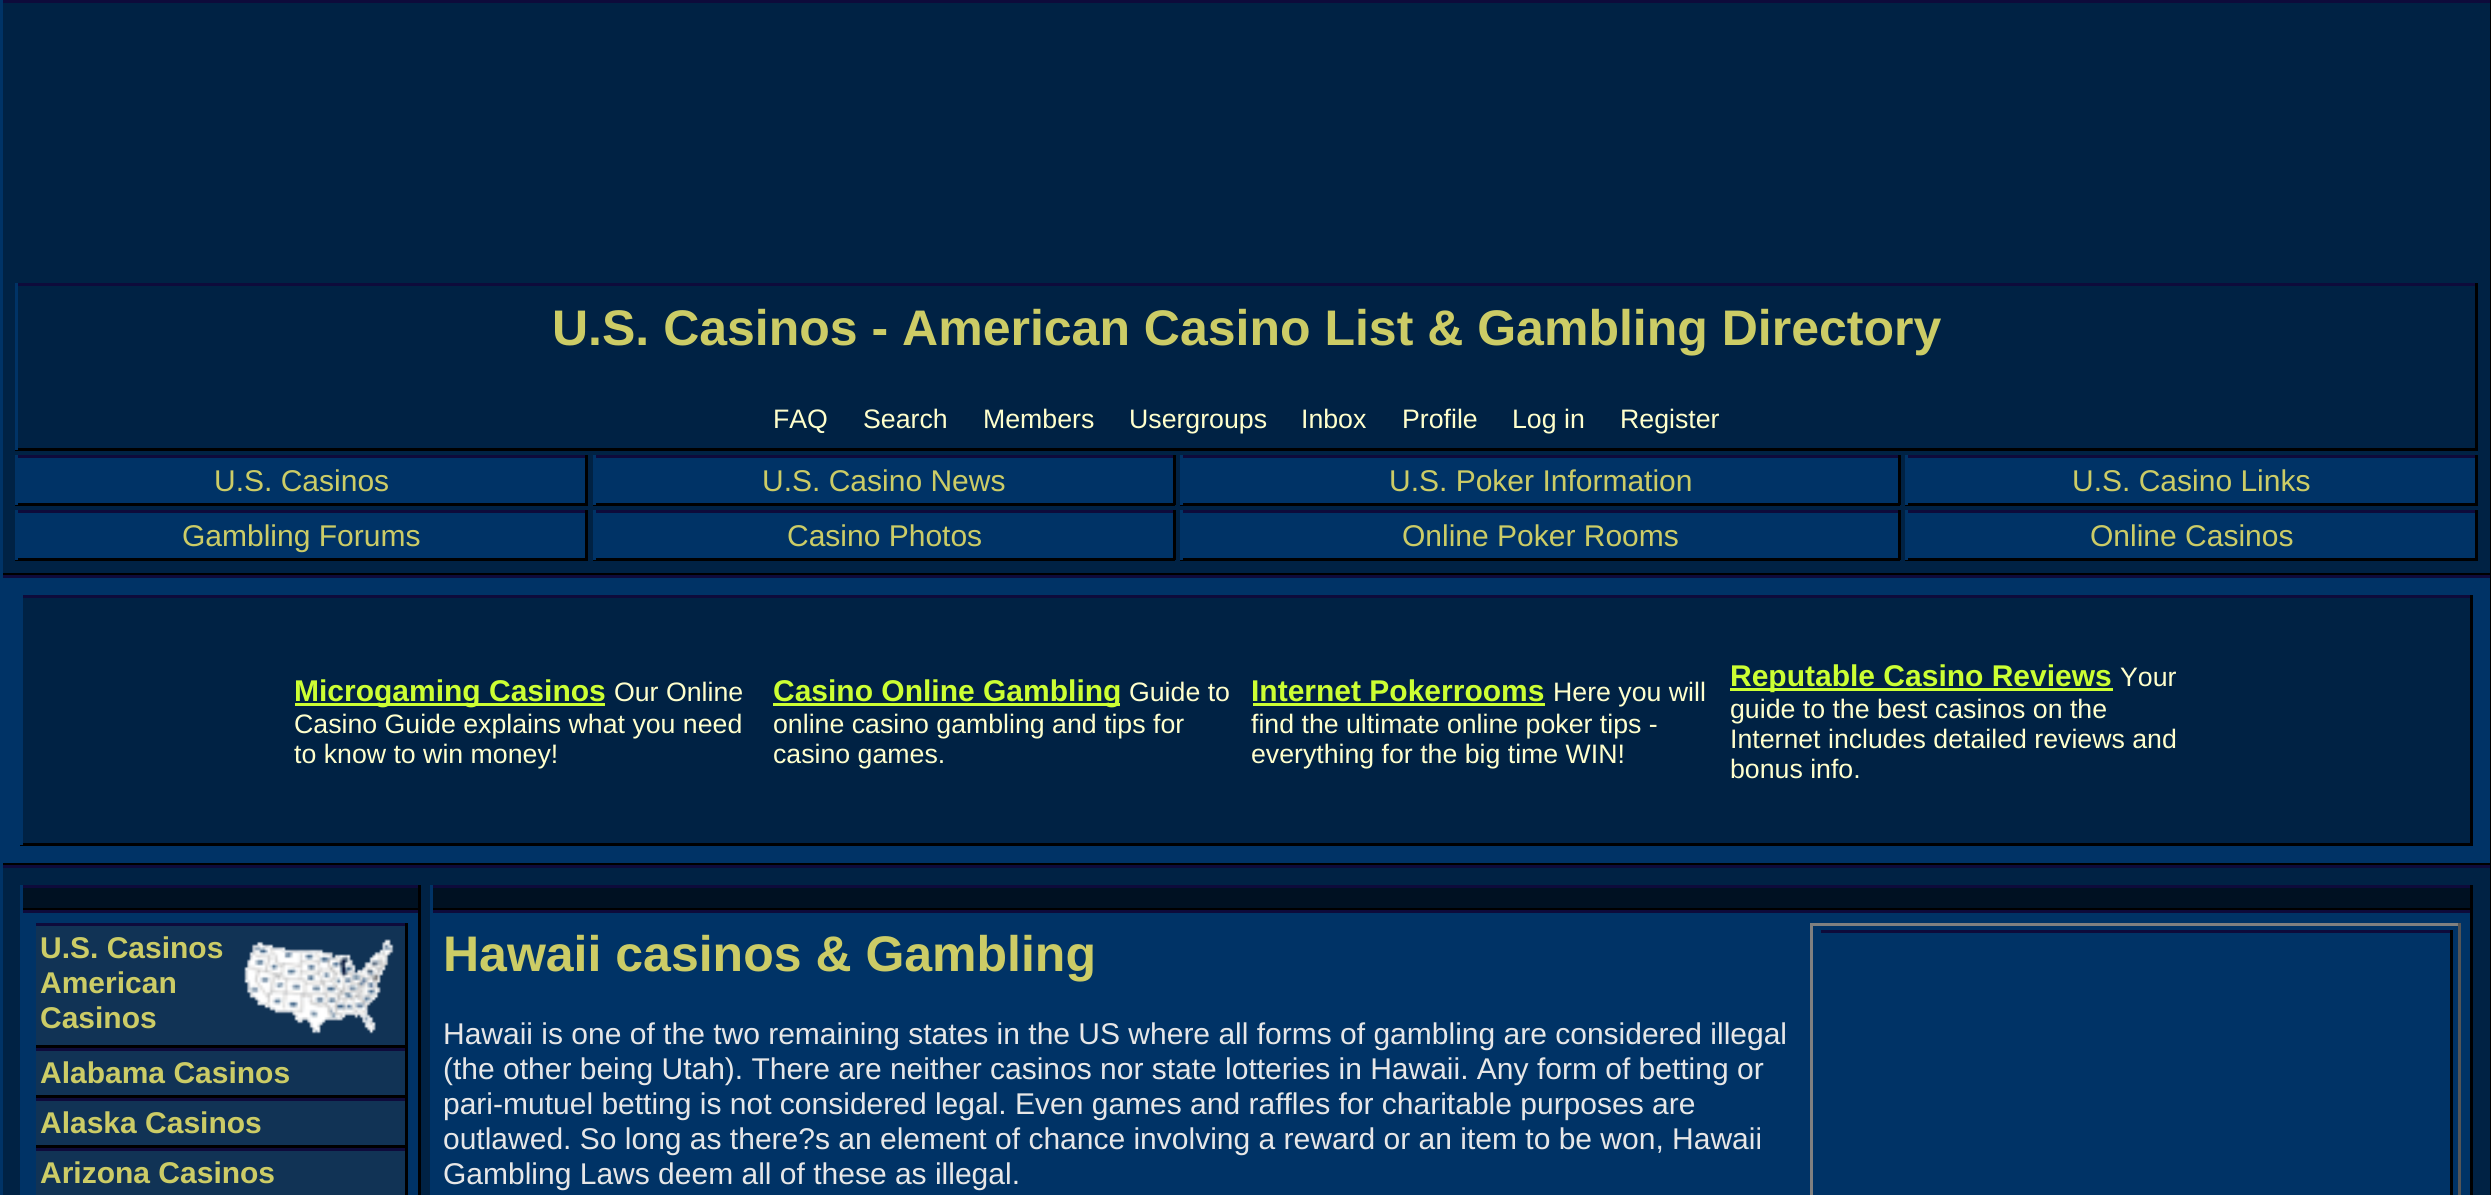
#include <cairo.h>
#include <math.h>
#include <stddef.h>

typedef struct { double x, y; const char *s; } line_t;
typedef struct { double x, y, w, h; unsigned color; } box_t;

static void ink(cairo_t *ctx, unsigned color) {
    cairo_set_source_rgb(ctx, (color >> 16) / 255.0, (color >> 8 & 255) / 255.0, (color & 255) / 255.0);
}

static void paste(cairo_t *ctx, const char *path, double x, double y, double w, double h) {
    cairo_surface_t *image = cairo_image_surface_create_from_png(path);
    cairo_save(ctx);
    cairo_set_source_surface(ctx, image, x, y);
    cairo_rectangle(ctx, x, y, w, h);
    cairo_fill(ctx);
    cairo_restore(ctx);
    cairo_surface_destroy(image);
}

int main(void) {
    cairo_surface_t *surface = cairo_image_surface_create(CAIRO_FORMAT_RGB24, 2491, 1195);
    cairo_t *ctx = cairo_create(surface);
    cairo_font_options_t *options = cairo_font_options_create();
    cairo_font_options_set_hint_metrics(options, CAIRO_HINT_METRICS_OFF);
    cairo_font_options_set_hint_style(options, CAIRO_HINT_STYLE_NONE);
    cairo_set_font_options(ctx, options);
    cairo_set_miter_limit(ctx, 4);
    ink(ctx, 0x002244);
    cairo_paint(ctx);
    {
        static const box_t items[] = {
            {0, 0, 2491, 3, 0x0E0B3B},
            {2490, 0, 1, 575, 0x000000},
            {0, 573, 2491, 2, 0x000000},
            {0, 0, 3, 575, 0x003366},
            {15, 283, 2463, 3, 0x0E0B3B},
            {2475, 283, 3, 167, 0x000000},
            {15, 448, 2463, 3, 0x000000},
            {15, 283, 3, 167, 0x003366},
        };
        for (size_t i = 0; i < sizeof items / sizeof *items; i++) {
            ink(ctx, items[i].color);
            cairo_rectangle(ctx, items[i].x, items[i].y, items[i].w, items[i].h);
            cairo_fill(ctx);
        }
    }
    cairo_select_font_face(ctx, "Liberation Sans", CAIRO_FONT_SLANT_NORMAL, CAIRO_FONT_WEIGHT_BOLD);
    cairo_set_font_size(ctx, 50);
    ink(ctx, 0xCCCC66);
    cairo_move_to(ctx, 552, 345);
    cairo_show_text(ctx, "U.S. Casinos - American Casino List & Gambling Directory");
    cairo_select_font_face(ctx, "Liberation Sans", CAIRO_FONT_SLANT_NORMAL, CAIRO_FONT_WEIGHT_NORMAL);
    cairo_set_font_size(ctx, 26.7);
    ink(ctx, 0xFFFFCC);
    {
        static const line_t items[] = {
            {773, 428, "FAQ"},
            {863, 428, "Search"},
            {983, 428, "Members"},
            {1129, 428, "Usergroups"},
            {1301, 428, "Inbox"},
            {1402, 428, "Profile"},
            {1512, 428, "Log in"},
            {1620, 428, "Register"},
        };
        for (size_t i = 0; i < sizeof items / sizeof *items; i++) {
            cairo_move_to(ctx, items[i].x, items[i].y);
            cairo_show_text(ctx, items[i].s);
        }
    }
    {
        static const box_t items[] = {
            {18, 458, 567, 45, 0x003366},
            {15, 455, 573, 3, 0x0E0B3B},
            {585, 455, 3, 50, 0x000000},
            {15, 503, 573, 3, 0x000000},
            {15, 455, 3, 50, 0x003366},
        };
        for (size_t i = 0; i < sizeof items / sizeof *items; i++) {
            ink(ctx, items[i].color);
            cairo_rectangle(ctx, items[i].x, items[i].y, items[i].w, items[i].h);
            cairo_fill(ctx);
        }
    }
    cairo_set_font_size(ctx, 30);
    ink(ctx, 0xCCCC66);
    cairo_move_to(ctx, 214, 491);
    cairo_show_text(ctx, "U.S. Casinos");
    {
        static const box_t items[] = {
            {596, 458, 577, 45, 0x003366},
            {593, 455, 582, 3, 0x0E0B3B},
            {1173, 455, 3, 50, 0x000000},
            {593, 503, 582, 3, 0x000000},
            {593, 455, 3, 50, 0x003366},
        };
        for (size_t i = 0; i < sizeof items / sizeof *items; i++) {
            ink(ctx, items[i].color);
            cairo_rectangle(ctx, items[i].x, items[i].y, items[i].w, items[i].h);
            cairo_fill(ctx);
        }
    }
    ink(ctx, 0xCCCC66);
    cairo_move_to(ctx, 762, 491);
    cairo_show_text(ctx, "U.S. Casino News");
    {
        static const box_t items[] = {
            {1183, 458, 715, 45, 0x003366},
            {1180, 455, 720, 3, 0x0E0B3B},
            {1898, 455, 3, 50, 0x000000},
            {1180, 503, 720, 3, 0x000000},
            {1180, 455, 3, 50, 0x003366},
        };
        for (size_t i = 0; i < sizeof items / sizeof *items; i++) {
            ink(ctx, items[i].color);
            cairo_rectangle(ctx, items[i].x, items[i].y, items[i].w, items[i].h);
            cairo_fill(ctx);
        }
    }
    ink(ctx, 0xCCCC66);
    cairo_move_to(ctx, 1389, 491);
    cairo_show_text(ctx, "U.S. Poker Information");
    {
        static const box_t items[] = {
            {1908, 458, 567, 45, 0x003366},
            {1905, 455, 573, 3, 0x0E0B3B},
            {2475, 455, 3, 50, 0x000000},
            {1905, 503, 573, 3, 0x000000},
            {1905, 455, 3, 50, 0x003366},
        };
        for (size_t i = 0; i < sizeof items / sizeof *items; i++) {
            ink(ctx, items[i].color);
            cairo_rectangle(ctx, items[i].x, items[i].y, items[i].w, items[i].h);
            cairo_fill(ctx);
        }
    }
    ink(ctx, 0xCCCC66);
    cairo_move_to(ctx, 2072, 491);
    cairo_show_text(ctx, "U.S. Casino Links");
    {
        static const box_t items[] = {
            {18, 513, 567, 45, 0x003366},
            {15, 510, 573, 3, 0x0E0B3B},
            {585, 510, 3, 50, 0x000000},
            {15, 558, 573, 3, 0x000000},
            {15, 510, 3, 50, 0x003366},
        };
        for (size_t i = 0; i < sizeof items / sizeof *items; i++) {
            ink(ctx, items[i].color);
            cairo_rectangle(ctx, items[i].x, items[i].y, items[i].w, items[i].h);
            cairo_fill(ctx);
        }
    }
    ink(ctx, 0xCCCC66);
    cairo_move_to(ctx, 182, 546);
    cairo_show_text(ctx, "Gambling Forums");
    {
        static const box_t items[] = {
            {596, 513, 577, 45, 0x003366},
            {593, 510, 582, 3, 0x0E0B3B},
            {1173, 510, 3, 50, 0x000000},
            {593, 558, 582, 3, 0x000000},
            {593, 510, 3, 50, 0x003366},
        };
        for (size_t i = 0; i < sizeof items / sizeof *items; i++) {
            ink(ctx, items[i].color);
            cairo_rectangle(ctx, items[i].x, items[i].y, items[i].w, items[i].h);
            cairo_fill(ctx);
        }
    }
    ink(ctx, 0xCCCC66);
    cairo_move_to(ctx, 787, 546);
    cairo_show_text(ctx, "Casino Photos");
    {
        static const box_t items[] = {
            {1183, 513, 715, 45, 0x003366},
            {1180, 510, 720, 3, 0x0E0B3B},
            {1898, 510, 3, 50, 0x000000},
            {1180, 558, 720, 3, 0x000000},
            {1180, 510, 3, 50, 0x003366},
        };
        for (size_t i = 0; i < sizeof items / sizeof *items; i++) {
            ink(ctx, items[i].color);
            cairo_rectangle(ctx, items[i].x, items[i].y, items[i].w, items[i].h);
            cairo_fill(ctx);
        }
    }
    ink(ctx, 0xCCCC66);
    cairo_move_to(ctx, 1402, 546);
    cairo_show_text(ctx, "Online Poker Rooms");
    {
        static const box_t items[] = {
            {1908, 513, 567, 45, 0x003366},
            {1905, 510, 573, 3, 0x0E0B3B},
            {2475, 510, 3, 50, 0x000000},
            {1905, 558, 573, 3, 0x000000},
            {1905, 510, 3, 50, 0x003366},
        };
        for (size_t i = 0; i < sizeof items / sizeof *items; i++) {
            ink(ctx, items[i].color);
            cairo_rectangle(ctx, items[i].x, items[i].y, items[i].w, items[i].h);
            cairo_fill(ctx);
        }
    }
    ink(ctx, 0xCCCC66);
    cairo_move_to(ctx, 2090, 546);
    cairo_show_text(ctx, "Online Casinos");
    {
        static const box_t items[] = {
            {3, 578, 2487, 285, 0x003366},
            {0, 575, 2491, 3, 0x0E0B3B},
            {2490, 575, 1, 290, 0x000000},
            {0, 863, 2491, 2, 0x000000},
            {0, 575, 3, 290, 0x003366},
            {23, 598, 2447, 245, 0x002244},
            {20, 595, 2453, 3, 0x0E0B3B},
            {2470, 595, 3, 250, 0x000000},
            {20, 843, 2453, 3, 0x000000},
            {20, 595, 3, 250, 0x003366},
            {295, 703, 310, 3, 0xCCFF33},
        };
        for (size_t i = 0; i < sizeof items / sizeof *items; i++) {
            ink(ctx, items[i].color);
            cairo_rectangle(ctx, items[i].x, items[i].y, items[i].w, items[i].h);
            cairo_fill(ctx);
        }
    }
    cairo_select_font_face(ctx, "Liberation Sans", CAIRO_FONT_SLANT_NORMAL, CAIRO_FONT_WEIGHT_BOLD);
    cairo_move_to(ctx, 294, 701);
    cairo_show_text(ctx, "Microgaming Casinos");
    cairo_select_font_face(ctx, "Liberation Sans", CAIRO_FONT_SLANT_NORMAL, CAIRO_FONT_WEIGHT_NORMAL);
    cairo_set_font_size(ctx, 26.7);
    ink(ctx, 0xFFFFCC);
    {
        static const line_t items[] = {
            {614, 701, "Our Online"},
            {294, 733, "Casino Guide explains what you need"},
            {294, 763, "to know to win money!"},
        };
        for (size_t i = 0; i < sizeof items / sizeof *items; i++) {
            cairo_move_to(ctx, items[i].x, items[i].y);
            cairo_show_text(ctx, items[i].s);
        }
    }
    ink(ctx, 0xCCFF33);
    cairo_rectangle(ctx, 773, 703, 347, 3);
    cairo_fill(ctx);
    cairo_select_font_face(ctx, "Liberation Sans", CAIRO_FONT_SLANT_NORMAL, CAIRO_FONT_WEIGHT_BOLD);
    cairo_set_font_size(ctx, 30);
    cairo_move_to(ctx, 773, 701);
    cairo_show_text(ctx, "Casino Online Gambling");
    cairo_select_font_face(ctx, "Liberation Sans", CAIRO_FONT_SLANT_NORMAL, CAIRO_FONT_WEIGHT_NORMAL);
    cairo_set_font_size(ctx, 26.7);
    ink(ctx, 0xFFFFCC);
    {
        static const line_t items[] = {
            {1129, 701, "Guide to"},
            {773, 733, "online casino gambling and tips for"},
            {773, 763, "casino games."},
        };
        for (size_t i = 0; i < sizeof items / sizeof *items; i++) {
            cairo_move_to(ctx, items[i].x, items[i].y);
            cairo_show_text(ctx, items[i].s);
        }
    }
    cairo_select_font_face(ctx, "Liberation Sans", CAIRO_FONT_SLANT_NORMAL, CAIRO_FONT_WEIGHT_BOLD);
    cairo_set_font_size(ctx, 30);
    ink(ctx, 0xCCFF33);
    cairo_move_to(ctx, 1251, 701);
    cairo_show_text(ctx, "Internet Pokerrooms");
    cairo_rectangle(ctx, 1253, 703, 292, 3);
    cairo_fill(ctx);
    cairo_select_font_face(ctx, "Liberation Sans", CAIRO_FONT_SLANT_NORMAL, CAIRO_FONT_WEIGHT_NORMAL);
    cairo_set_font_size(ctx, 26.7);
    ink(ctx, 0xFFFFCC);
    {
        static const line_t items[] = {
            {1553, 701, "Here you will"},
            {1251, 733, "find the ultimate online poker tips -"},
            {1251, 763, "everything for the big time WIN!"},
        };
        for (size_t i = 0; i < sizeof items / sizeof *items; i++) {
            cairo_move_to(ctx, items[i].x, items[i].y);
            cairo_show_text(ctx, items[i].s);
        }
    }
    ink(ctx, 0xCCFF33);
    cairo_rectangle(ctx, 1730, 688, 383, 3);
    cairo_fill(ctx);
    cairo_select_font_face(ctx, "Liberation Sans", CAIRO_FONT_SLANT_NORMAL, CAIRO_FONT_WEIGHT_BOLD);
    cairo_set_font_size(ctx, 30);
    cairo_move_to(ctx, 1730, 686);
    cairo_show_text(ctx, "Reputable Casino Reviews");
    cairo_select_font_face(ctx, "Liberation Sans", CAIRO_FONT_SLANT_NORMAL, CAIRO_FONT_WEIGHT_NORMAL);
    cairo_set_font_size(ctx, 26.7);
    ink(ctx, 0xFFFFCC);
    {
        static const line_t items[] = {
            {2120, 686, "Your"},
            {1730, 718, "guide to the best casinos on the"},
            {1730, 748, "Internet includes detailed reviews and"},
            {1730, 778, "bonus info."},
        };
        for (size_t i = 0; i < sizeof items / sizeof *items; i++) {
            cairo_move_to(ctx, items[i].x, items[i].y);
            cairo_show_text(ctx, items[i].s);
        }
    }
    {
        static const box_t items[] = {
            {0, 865, 2491, 3, 0x0E0B3B},
            {2490, 865, 1, 330, 0x000000},
            {0, 865, 3, 330, 0x003366},
            {23, 913, 395, 282, 0x003366},
            {23, 888, 395, 20, 0x001122},
            {20, 885, 400, 3, 0x0E0B3B},
            {418, 885, 3, 25, 0x000000},
            {20, 908, 400, 2, 0x000000},
            {20, 885, 3, 25, 0x003366},
            {20, 910, 400, 3, 0x0E0B3B},
            {418, 910, 3, 285, 0x000000},
            {20, 910, 3, 285, 0x003366},
            {36, 926, 369, 269, 0x113355},
            {33, 923, 375, 3, 0x0E0B3B},
            {405, 923, 3, 125, 0x000000},
            {33, 1045, 375, 3, 0x000000},
            {33, 923, 3, 125, 0x003366},
        };
        for (size_t i = 0; i < sizeof items / sizeof *items; i++) {
            ink(ctx, items[i].color);
            cairo_rectangle(ctx, items[i].x, items[i].y, items[i].w, items[i].h);
            cairo_fill(ctx);
        }
    }
    cairo_select_font_face(ctx, "Liberation Sans", CAIRO_FONT_SLANT_NORMAL, CAIRO_FONT_WEIGHT_BOLD);
    cairo_set_font_size(ctx, 30);
    ink(ctx, 0xCCCC66);
    cairo_move_to(ctx, 40, 958);
    cairo_show_text(ctx, "U.S. Casinos");
    paste(ctx, "media/1.png", 244, 939, 150, 95);
    cairo_move_to(ctx, 40, 993);
    cairo_show_text(ctx, "American");
    cairo_move_to(ctx, 40, 1028);
    cairo_show_text(ctx, "Casinos");
    {
        static const box_t items[] = {
            {33, 1048, 375, 3, 0x0E0B3B},
            {405, 1048, 3, 50, 0x000000},
            {33, 1095, 375, 3, 0x000000},
            {33, 1048, 3, 50, 0x003366},
        };
        for (size_t i = 0; i < sizeof items / sizeof *items; i++) {
            ink(ctx, items[i].color);
            cairo_rectangle(ctx, items[i].x, items[i].y, items[i].w, items[i].h);
            cairo_fill(ctx);
        }
    }
    ink(ctx, 0xCCCC66);
    cairo_move_to(ctx, 40, 1083);
    cairo_show_text(ctx, "Alabama Casinos");
    {
        static const box_t items[] = {
            {33, 1098, 375, 3, 0x0E0B3B},
            {405, 1098, 3, 50, 0x000000},
            {33, 1145, 375, 3, 0x000000},
            {33, 1098, 3, 50, 0x003366},
        };
        for (size_t i = 0; i < sizeof items / sizeof *items; i++) {
            ink(ctx, items[i].color);
            cairo_rectangle(ctx, items[i].x, items[i].y, items[i].w, items[i].h);
            cairo_fill(ctx);
        }
    }
    ink(ctx, 0xCCCC66);
    cairo_move_to(ctx, 40, 1133);
    cairo_show_text(ctx, "Alaska Casinos");
    {
        static const box_t items[] = {
            {33, 1148, 375, 3, 0x0E0B3B},
            {405, 1148, 3, 47, 0x000000},
            {33, 1148, 3, 3, 0x003366},
        };
        for (size_t i = 0; i < sizeof items / sizeof *items; i++) {
            ink(ctx, items[i].color);
            cairo_rectangle(ctx, items[i].x, items[i].y, items[i].w, items[i].h);
            cairo_fill(ctx);
        }
    }
    ink(ctx, 0xCCCC66);
    cairo_move_to(ctx, 40, 1183);
    cairo_show_text(ctx, "Arizona Casinos");
    {
        static const box_t items[] = {
            {433, 913, 2037, 282, 0x003366},
            {433, 888, 2037, 20, 0x001122},
            {430, 885, 2043, 3, 0x0E0B3B},
            {2470, 885, 3, 25, 0x000000},
            {430, 908, 2043, 2, 0x000000},
            {430, 885, 3, 25, 0x003366},
            {430, 910, 2043, 3, 0x0E0B3B},
            {2470, 910, 3, 285, 0x000000},
            {430, 910, 3, 285, 0x003366},
        };
        for (size_t i = 0; i < sizeof items / sizeof *items; i++) {
            ink(ctx, items[i].color);
            cairo_rectangle(ctx, items[i].x, items[i].y, items[i].w, items[i].h);
            cairo_fill(ctx);
        }
    }
    cairo_set_font_size(ctx, 50);
    ink(ctx, 0xCCCC66);
    cairo_move_to(ctx, 443, 971);
    cairo_show_text(ctx, "Hawaii casinos & Gambling");
    {
        static const box_t items[] = {
            {1810, 923, 650, 3, 0x808080},
            {2458, 923, 3, 272, 0x555555},
            {1810, 923, 3, 272, 0x808080},
            {1818, 930, 635, 3, 0x0E0B3B},
            {2450, 930, 3, 265, 0x000000},
            {1818, 930, 3, 3, 0x003366},
        };
        for (size_t i = 0; i < sizeof items / sizeof *items; i++) {
            ink(ctx, items[i].color);
            cairo_rectangle(ctx, items[i].x, items[i].y, items[i].w, items[i].h);
            cairo_fill(ctx);
        }
    }
    cairo_select_font_face(ctx, "Liberation Sans", CAIRO_FONT_SLANT_NORMAL, CAIRO_FONT_WEIGHT_NORMAL);
    cairo_set_font_size(ctx, 30);
    ink(ctx, 0xE7E7E7);
    {
        static const line_t items[] = {
            {443, 1044, "Hawaii is one of the two remaining states in the US where all forms of gambling are considered illegal"},
            {443, 1079, "(the other being Utah). There are neither casinos nor state lotteries in Hawaii. Any form of betting or"},
            {443, 1114, "pari-mutuel betting is not considered legal. Even games and raffles for charitable purposes are"},
            {443, 1149, "outlawed. So long as there?s an element of chance involving a reward or an item to be won, Hawaii"},
            {443, 1184, "Gambling Laws deem all of these as illegal."},
        };
        for (size_t i = 0; i < sizeof items / sizeof *items; i++) {
            cairo_move_to(ctx, items[i].x, items[i].y);
            cairo_show_text(ctx, items[i].s);
        }
    }
    cairo_surface_write_to_png(surface, "image.png");
    cairo_font_options_destroy(options);
    cairo_destroy(ctx);
    cairo_surface_destroy(surface);
    return 0;
}
